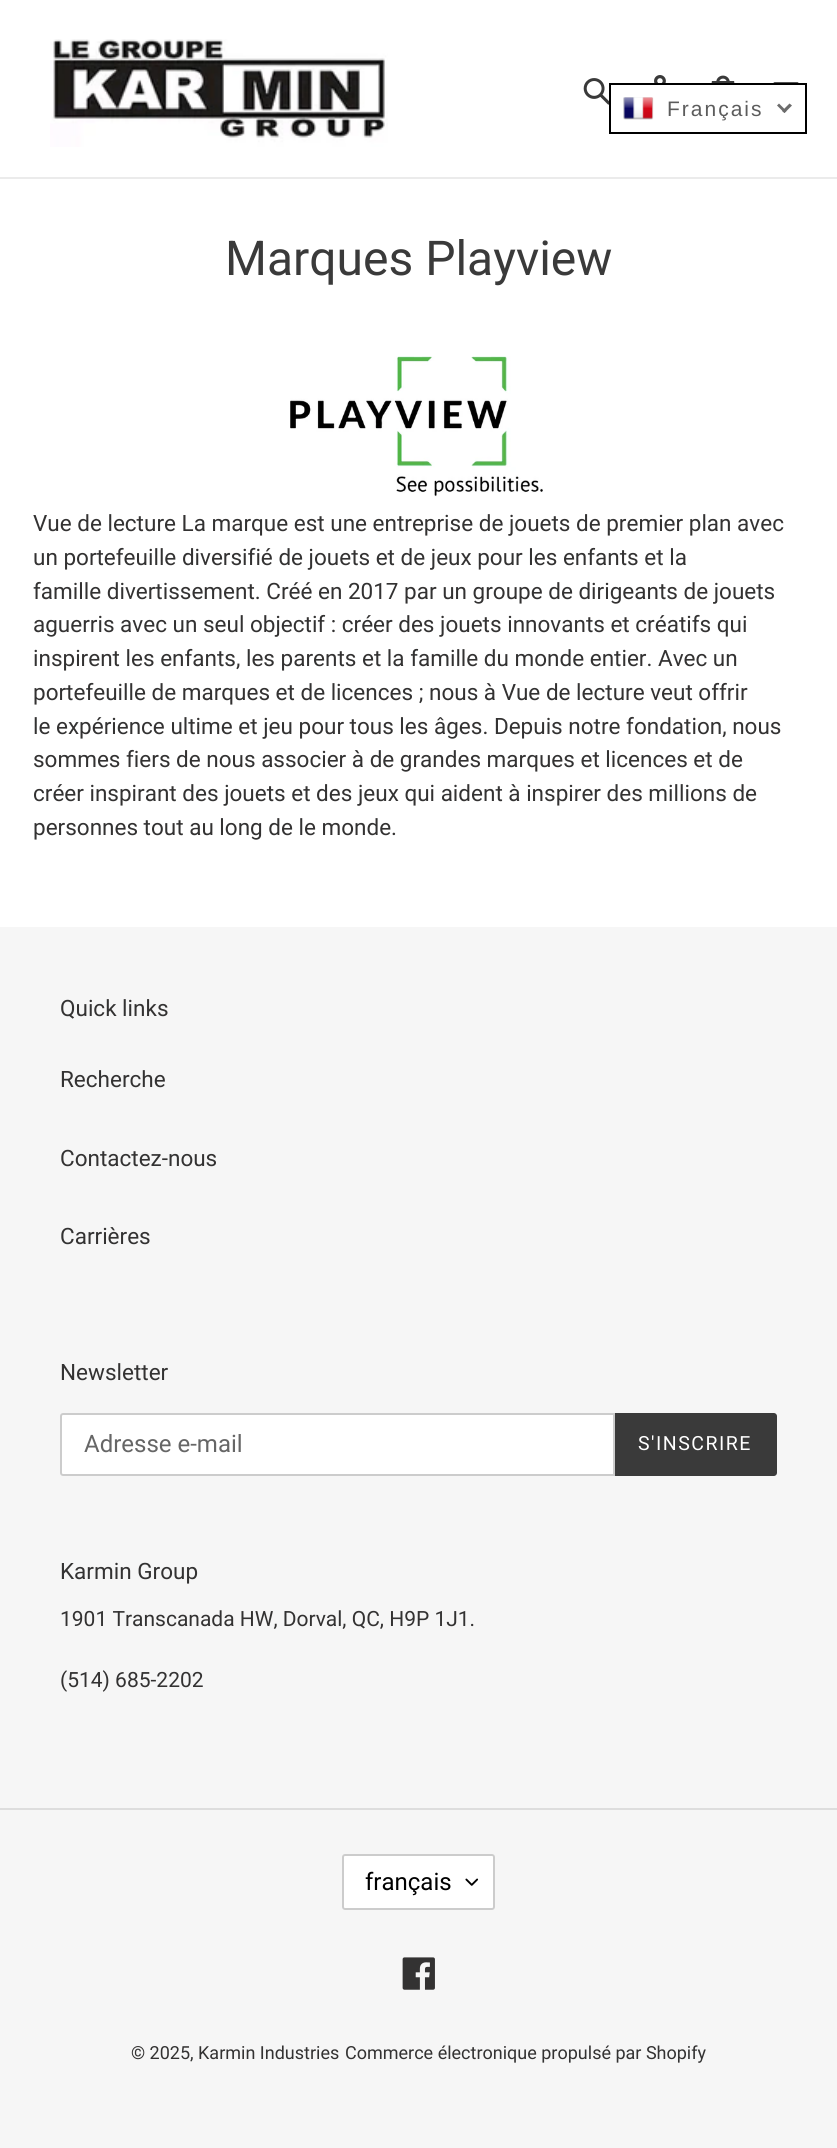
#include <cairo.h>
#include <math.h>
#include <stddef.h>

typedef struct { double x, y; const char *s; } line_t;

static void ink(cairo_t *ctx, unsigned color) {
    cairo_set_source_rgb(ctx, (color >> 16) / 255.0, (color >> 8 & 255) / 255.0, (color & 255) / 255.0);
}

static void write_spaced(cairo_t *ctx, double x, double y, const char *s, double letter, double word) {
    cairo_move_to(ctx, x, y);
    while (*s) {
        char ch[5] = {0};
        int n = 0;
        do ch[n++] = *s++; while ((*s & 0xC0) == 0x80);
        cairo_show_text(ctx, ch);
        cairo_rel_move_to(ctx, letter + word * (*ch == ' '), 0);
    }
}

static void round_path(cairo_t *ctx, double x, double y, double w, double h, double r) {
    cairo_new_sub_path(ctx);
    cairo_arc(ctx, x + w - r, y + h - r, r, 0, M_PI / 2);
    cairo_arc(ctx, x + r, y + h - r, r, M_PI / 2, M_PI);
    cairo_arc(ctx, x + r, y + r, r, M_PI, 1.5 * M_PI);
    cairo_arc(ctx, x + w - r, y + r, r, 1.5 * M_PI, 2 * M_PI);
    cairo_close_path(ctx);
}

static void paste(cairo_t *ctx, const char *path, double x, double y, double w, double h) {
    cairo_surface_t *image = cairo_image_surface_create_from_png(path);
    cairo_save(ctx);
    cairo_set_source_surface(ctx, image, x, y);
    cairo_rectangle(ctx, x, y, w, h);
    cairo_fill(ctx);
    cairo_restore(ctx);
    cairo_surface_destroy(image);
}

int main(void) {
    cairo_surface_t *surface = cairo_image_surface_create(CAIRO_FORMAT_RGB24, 837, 2148);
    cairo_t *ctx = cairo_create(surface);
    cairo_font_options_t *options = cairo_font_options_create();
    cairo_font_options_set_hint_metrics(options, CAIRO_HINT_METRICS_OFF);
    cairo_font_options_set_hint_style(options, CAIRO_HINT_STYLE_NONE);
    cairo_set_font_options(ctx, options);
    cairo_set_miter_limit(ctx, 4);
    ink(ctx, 0xFFFFFF);
    cairo_paint(ctx);
    ink(ctx, 0xEBEBEB);
    cairo_rectangle(ctx, 0, 177, 837, 2);
    cairo_fill(ctx);
    paste(ctx, "media/1.png", 50, 39, 338, 108);
    paste(ctx, "media/2.png", 583, 78, 26, 27);
    paste(ctx, "media/3.png", 654, 75, 12, 8);
    paste(ctx, "media/4.png", 711, 75, 24, 8);
    paste(ctx, "media/5.png", 773, 82, 26, 1);
    cairo_rectangle(ctx, 610, 84, 196, 49);
    ink(ctx, 0x000000);
    cairo_stroke(ctx);
    paste(ctx, "media/6.png", 623, 97, 31, 23);
    cairo_select_font_face(ctx, "Liberation Sans", CAIRO_FONT_SLANT_NORMAL, CAIRO_FONT_WEIGHT_NORMAL);
    cairo_set_font_size(ctx, 21);
    ink(ctx, 0x5C5C5C);
    write_spaced(ctx, 667, 116, "Français", 2, 0);
    ink(ctx, 0x6C6C6C);
    cairo_new_path(ctx);
    cairo_move_to(ctx, 789.5, 103.5);
    cairo_line_to(ctx, 792, 105.5);
    cairo_line_to(ctx, 784.5, 113);
    cairo_line_to(ctx, 782, 111);
    cairo_close_path(ctx);
    cairo_fill(ctx);
    cairo_new_path(ctx);
    cairo_move_to(ctx, 779, 103.5);
    cairo_line_to(ctx, 786.5, 111);
    cairo_line_to(ctx, 784.5, 113);
    cairo_line_to(ctx, 777, 105.5);
    cairo_close_path(ctx);
    cairo_fill(ctx);
    cairo_select_font_face(ctx, "Roboto", CAIRO_FONT_SLANT_NORMAL, CAIRO_FONT_WEIGHT_NORMAL);
    cairo_set_font_size(ctx, 48);
    ink(ctx, 0x3A3A3A);
    cairo_move_to(ctx, 225, 275);
    cairo_show_text(ctx, "Marques Playview");
    paste(ctx, "media/7.png", 290, 356, 253, 141);
    cairo_set_font_size(ctx, 22.5);
    ink(ctx, 0x333232);
    {
        static const line_t items[] = {
            {33, 531, "Vue de lecture La marque est une entreprise de jouets de premier plan avec"},
            {33, 565, "un portefeuille diversifié de jouets et de jeux pour les enfants et la"},
            {33, 599, "famille divertissement. Créé en 2017 par un groupe de dirigeants de jouets"},
            {33, 632, "aguerris avec un seul objectif : créer des jouets innovants et créatifs qui"},
            {33, 666, "inspirent les enfants, les parents et la famille du monde entier. Avec un"},
            {33, 700, "portefeuille de marques et de licences ; nous à Vue de lecture veut offrir"},
            {33, 734, "le expérience ultime et jeu pour tous les âges. Depuis notre fondation, nous"},
            {33, 767, "sommes fiers de nous associer à de grandes marques et licences et de"},
            {33, 801, "créer inspirant des jouets et des jeux qui aident à inspirer des millions de"},
            {33, 835, "personnes tout au long de le monde."},
        };
        for (size_t i = 0; i < sizeof items / sizeof *items; i++) {
            cairo_move_to(ctx, items[i].x, items[i].y);
            cairo_show_text(ctx, items[i].s);
        }
    }
    ink(ctx, 0xF6F6F6);
    cairo_rectangle(ctx, 0, 927, 837, 1221);
    cairo_fill(ctx);
    ink(ctx, 0x333232);
    {
        static const line_t items[] = {
            {60, 1016, "Quick links"},
            {60, 1087, "Recherche"},
            {60, 1166, "Contactez-nous"},
            {60, 1244, "Carrières"},
            {60, 1380, "Newsletter"},
        };
        for (size_t i = 0; i < sizeof items / sizeof *items; i++) {
            cairo_move_to(ctx, items[i].x, items[i].y);
            cairo_show_text(ctx, items[i].s);
        }
    }
    ink(ctx, 0xFFFFFF);
    cairo_new_path(ctx);
    cairo_move_to(ctx, 63, 1414);
    cairo_line_to(ctx, 614, 1414);
    cairo_line_to(ctx, 614, 1475);
    cairo_line_to(ctx, 63, 1475);
    cairo_curve_to(ctx, 62, 1475, 61, 1474, 61, 1473);
    cairo_line_to(ctx, 61, 1416);
    cairo_curve_to(ctx, 61, 1415, 62, 1414, 63, 1414);
    cairo_close_path(ctx);
    cairo_fill_preserve(ctx);
    ink(ctx, 0xCCCCCC);
    cairo_stroke(ctx);
    cairo_set_font_size(ctx, 24);
    ink(ctx, 0x666666);
    cairo_move_to(ctx, 84, 1452);
    cairo_show_text(ctx, "Adresse e-mail");
    ink(ctx, 0x3A3A3A);
    cairo_new_path(ctx);
    cairo_move_to(ctx, 615, 1413);
    cairo_line_to(ctx, 774, 1413);
    cairo_curve_to(ctx, 775.5, 1413, 777, 1414.5, 777, 1416);
    cairo_line_to(ctx, 777, 1473);
    cairo_curve_to(ctx, 777, 1474.5, 775.5, 1476, 774, 1476);
    cairo_line_to(ctx, 615, 1476);
    cairo_close_path(ctx);
    cairo_fill(ctx);
    cairo_set_font_size(ctx, 19.5);
    ink(ctx, 0xFFFFFF);
    write_spaced(ctx, 638, 1450, "S'INSCRIRE", 1.5, 0);
    cairo_set_font_size(ctx, 22.5);
    ink(ctx, 0x333232);
    cairo_move_to(ctx, 60, 1579);
    cairo_show_text(ctx, "Karmin Group");
    cairo_set_font_size(ctx, 21);
    cairo_move_to(ctx, 60, 1626);
    cairo_show_text(ctx, "1901 Transcanada HW, Dorval, QC, H9P 1J1.");
    cairo_move_to(ctx, 60, 1687);
    cairo_show_text(ctx, "(514) 685-2202");
    ink(ctx, 0xDDDDDD);
    cairo_rectangle(ctx, 0, 1808, 837, 2);
    cairo_fill(ctx);
    ink(ctx, 0xFFFFFF);
    round_path(ctx, 342, 1854, 153, 56, 3);
    cairo_fill(ctx);
    paste(ctx, "media/8.png", 465, 1878, 14, 8);
    round_path(ctx, 343, 1855, 151, 54, 2);
    ink(ctx, 0xCCCCCC);
    cairo_stroke(ctx);
    cairo_set_font_size(ctx, 24);
    ink(ctx, 0x000000);
    cairo_move_to(ctx, 365, 1890);
    cairo_show_text(ctx, "français");
    paste(ctx, "media/9.png", 402, 1957, 33, 33);
    cairo_set_font_size(ctx, 18);
    ink(ctx, 0x333232);
    cairo_move_to(ctx, 131, 2059);
    cairo_show_text(ctx, "© 2025, Karmin Industries");
    cairo_move_to(ctx, 345, 2059);
    cairo_show_text(ctx, "Commerce électronique propulsé par Shopify");
    cairo_surface_write_to_png(surface, "image.png");
    cairo_font_options_destroy(options);
    cairo_destroy(ctx);
    cairo_surface_destroy(surface);
    return 0;
}
